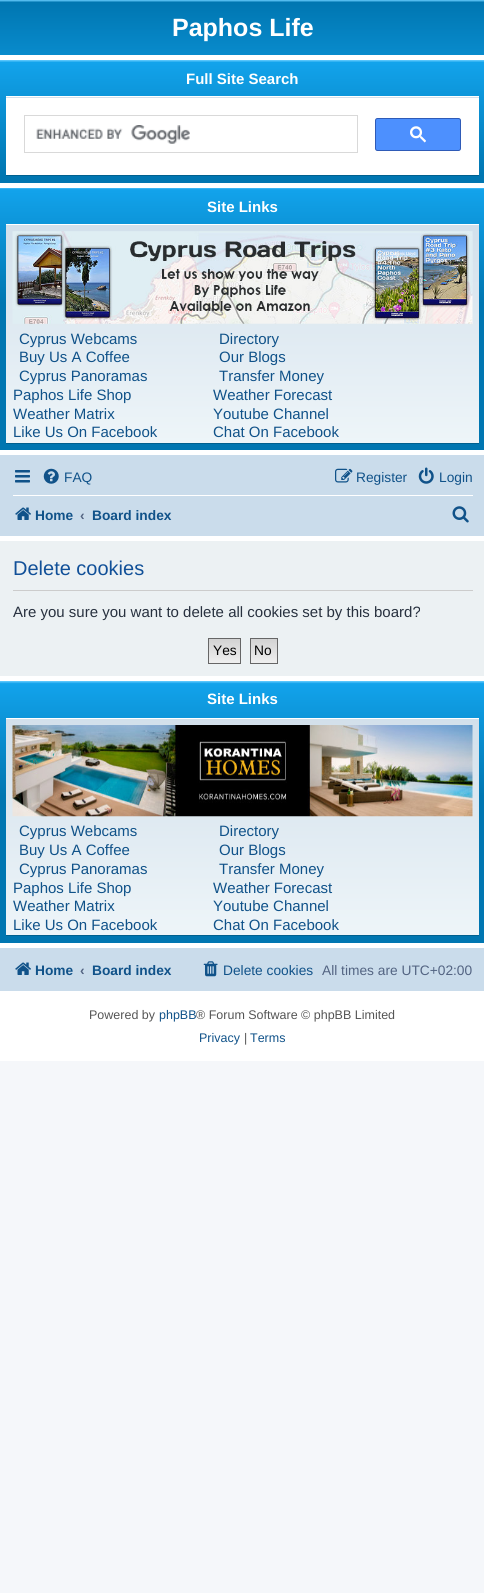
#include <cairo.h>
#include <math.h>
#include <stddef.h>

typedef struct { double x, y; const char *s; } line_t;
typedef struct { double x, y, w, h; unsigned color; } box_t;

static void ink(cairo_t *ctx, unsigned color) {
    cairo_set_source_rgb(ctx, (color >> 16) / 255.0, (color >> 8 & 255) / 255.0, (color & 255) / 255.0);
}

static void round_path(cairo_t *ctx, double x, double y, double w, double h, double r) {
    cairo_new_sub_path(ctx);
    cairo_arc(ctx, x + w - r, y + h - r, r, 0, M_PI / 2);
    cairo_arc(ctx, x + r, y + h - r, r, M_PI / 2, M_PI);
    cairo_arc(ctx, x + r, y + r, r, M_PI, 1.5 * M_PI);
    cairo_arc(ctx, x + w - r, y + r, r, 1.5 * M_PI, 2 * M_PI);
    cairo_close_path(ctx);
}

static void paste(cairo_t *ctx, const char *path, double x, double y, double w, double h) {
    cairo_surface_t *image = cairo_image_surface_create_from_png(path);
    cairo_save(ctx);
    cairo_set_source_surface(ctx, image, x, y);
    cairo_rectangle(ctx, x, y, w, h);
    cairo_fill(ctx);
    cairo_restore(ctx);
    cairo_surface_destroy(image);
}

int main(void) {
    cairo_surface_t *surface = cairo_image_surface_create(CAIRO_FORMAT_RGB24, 484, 1593);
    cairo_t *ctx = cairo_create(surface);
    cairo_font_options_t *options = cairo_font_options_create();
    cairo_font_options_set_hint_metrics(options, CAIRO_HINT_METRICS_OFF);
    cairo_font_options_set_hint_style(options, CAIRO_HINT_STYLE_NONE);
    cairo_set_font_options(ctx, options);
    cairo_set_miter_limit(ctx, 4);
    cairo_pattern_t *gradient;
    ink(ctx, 0xF5F7FA);
    cairo_paint(ctx);
    ink(ctx, 0xFFFFFF);
    cairo_rectangle(ctx, 0, 55, 484, 1006);
    cairo_fill(ctx);
    gradient = cairo_pattern_create_linear(243, 0, 243, 115);
    cairo_pattern_add_color_stop_rgba(gradient, 0, 0.416, 0.808, 1, 1);
    cairo_pattern_add_color_stop_rgba(gradient, 0.02, 0, 0.463, 0.694, 1);
    cairo_pattern_add_color_stop_rgba(gradient, 1, 0.071, 0.639, 0.922, 1);
    cairo_set_source(ctx, gradient);
    cairo_pattern_destroy(gradient);
    cairo_rectangle(ctx, 0, 0, 484, 55);
    cairo_fill(ctx);
    cairo_select_font_face(ctx, "Liberation Sans", CAIRO_FONT_SLANT_NORMAL, CAIRO_FONT_WEIGHT_BOLD);
    cairo_set_font_size(ctx, 25);
    ink(ctx, 0xFFFFFF);
    cairo_move_to(ctx, 172, 36);
    cairo_show_text(ctx, "Paphos Life");
    gradient = cairo_pattern_create_linear(243, 60, 243, 183);
    cairo_pattern_add_color_stop_rgba(gradient, 0, 0.416, 0.808, 1, 1);
    cairo_pattern_add_color_stop_rgba(gradient, 0.02, 0.071, 0.639, 0.922, 1);
    cairo_pattern_add_color_stop_rgba(gradient, 0.94, 0, 0.463, 0.694, 1);
    cairo_pattern_add_color_stop_rgba(gradient, 1, 0, 0.463, 0.694, 1);
    cairo_set_source(ctx, gradient);
    cairo_pattern_destroy(gradient);
    cairo_rectangle(ctx, 0, 60, 484, 123);
    cairo_fill(ctx);
    cairo_set_font_size(ctx, 15);
    ink(ctx, 0xFFFFFF);
    cairo_move_to(ctx, 186, 84);
    cairo_show_text(ctx, "Full Site Search");
    gradient = cairo_pattern_create_linear(243, 96, 243, 176);
    cairo_pattern_add_color_stop_rgba(gradient, 0, 0.824, 0.878, 0.922, 1);
    cairo_pattern_add_color_stop_rgba(gradient, 1, 0.933, 0.961, 0.976, 1);
    cairo_set_source(ctx, gradient);
    cairo_pattern_destroy(gradient);
    cairo_rectangle(ctx, 6, 97, 473, 1);
    cairo_fill(ctx);
    {
        static const box_t items[] = {
            {6, 96, 473, 1, 0xFFFFFF},
            {6, 175, 473, 1, 0x00608F},
            {6, 98, 473, 77, 0xFFFFFF},
        };
        for (size_t i = 0; i < sizeof items / sizeof *items; i++) {
            ink(ctx, items[i].color);
            cairo_rectangle(ctx, items[i].x, items[i].y, items[i].w, items[i].h);
            cairo_fill(ctx);
        }
    }
    cairo_rectangle(ctx, 24.5, 115.5, 333, 37);
    ink(ctx, 0xD9D9D9);
    cairo_set_line_width(ctx, 1);
    cairo_stroke(ctx);
    paste(ctx, "media/1.png", 36, 125, 154, 19);
    ink(ctx, 0x4D90FE);
    round_path(ctx, 375.5, 118.5, 85, 32, 2);
    cairo_fill_preserve(ctx);
    ink(ctx, 0x2F5BB7);
    cairo_stroke(ctx);
    paste(ctx, "media/2.png", 410, 126, 16, 17);
    gradient = cairo_pattern_create_linear(243, 187, 243, 450);
    cairo_pattern_add_color_stop_rgba(gradient, 0, 0.416, 0.808, 1, 1);
    cairo_pattern_add_color_stop_rgba(gradient, 0.01, 0.071, 0.639, 0.922, 1);
    cairo_pattern_add_color_stop_rgba(gradient, 0.44, 0, 0.463, 0.694, 1);
    cairo_pattern_add_color_stop_rgba(gradient, 1, 0, 0.463, 0.694, 1);
    cairo_set_source(ctx, gradient);
    cairo_pattern_destroy(gradient);
    cairo_rectangle(ctx, 0, 188, 484, 262);
    cairo_fill(ctx);
    ink(ctx, 0xFFFFFF);
    cairo_move_to(ctx, 207, 212);
    cairo_show_text(ctx, "Site Links");
    gradient = cairo_pattern_create_linear(243, 224, 243, 444);
    cairo_pattern_add_color_stop_rgba(gradient, 0, 0.824, 0.878, 0.922, 1);
    cairo_pattern_add_color_stop_rgba(gradient, 1, 0.933, 0.961, 0.976, 1);
    cairo_set_source(ctx, gradient);
    cairo_pattern_destroy(gradient);
    cairo_rectangle(ctx, 6, 225, 473, 218);
    cairo_fill(ctx);
    ink(ctx, 0xFFFFFF);
    cairo_rectangle(ctx, 6, 224, 473, 1);
    cairo_fill(ctx);
    ink(ctx, 0x00608F);
    cairo_rectangle(ctx, 6, 443, 473, 1);
    cairo_fill(ctx);
    paste(ctx, "media/3.png", 12, 231, 461, 93);
    cairo_select_font_face(ctx, "Liberation Sans", CAIRO_FONT_SLANT_NORMAL, CAIRO_FONT_WEIGHT_NORMAL);
    ink(ctx, 0x105289);
    {
        static const line_t items[] = {
            {19, 344, "Cyprus Webcams"},
            {219, 344, "Directory"},
            {19, 362, "Buy Us A Coffee"},
            {219, 362, "Our Blogs"},
            {19, 381, "Cyprus Panoramas"},
            {219, 381, "Transfer Money"},
            {13, 400, "Paphos Life Shop"},
            {213, 400, "Weather Forecast"},
            {13, 419, "Weather Matrix"},
            {213, 419, "Youtube Channel"},
            {13, 437, "Like Us On Facebook"},
            {213, 437, "Chat On Facebook"},
        };
        for (size_t i = 0; i < sizeof items / sizeof *items; i++) {
            cairo_move_to(ctx, items[i].x, items[i].y);
            cairo_show_text(ctx, items[i].s);
        }
    }
    ink(ctx, 0xCADCEB);
    cairo_rectangle(ctx, 0, 455, 484, 81);
    cairo_fill(ctx);
    paste(ctx, "media/4.png", 15, 470, 15, 13);
    paste(ctx, "media/5.png", 43, 468, 16, 16);
    cairo_set_font_size(ctx, 13.75);
    ink(ctx, 0x105289);
    cairo_move_to(ctx, 64, 482);
    cairo_show_text(ctx, "FAQ");
    paste(ctx, "media/6.png", 335, 468, 18, 15);
    cairo_move_to(ctx, 356, 482);
    cairo_show_text(ctx, "Register");
    paste(ctx, "media/7.png", 418, 467, 16, 17);
    cairo_move_to(ctx, 439, 482);
    cairo_show_text(ctx, "Login");
    ink(ctx, 0xFFFFFF);
    cairo_rectangle(ctx, 13, 495, 460, 1);
    cairo_fill(ctx);
    paste(ctx, "media/8.png", 15, 507, 16, 13);
    cairo_select_font_face(ctx, "Liberation Sans", CAIRO_FONT_SLANT_NORMAL, CAIRO_FONT_WEIGHT_BOLD);
    ink(ctx, 0x105289);
    cairo_move_to(ctx, 35, 520);
    cairo_show_text(ctx, "Home");
    ink(ctx, 0x536482);
    cairo_move_to(ctx, 80, 520);
    cairo_show_text(ctx, "‹");
    ink(ctx, 0x105289);
    cairo_move_to(ctx, 92, 520);
    cairo_show_text(ctx, "Board index");
    paste(ctx, "media/9.png", 452, 506, 17, 17);
    ink(ctx, 0xECF1F3);
    cairo_rectangle(ctx, 0, 541, 484, 135);
    cairo_fill(ctx);
    ink(ctx, 0xCCCCCC);
    cairo_rectangle(ctx, 13, 590, 460, 1);
    cairo_fill(ctx);
    cairo_select_font_face(ctx, "Liberation Sans", CAIRO_FONT_SLANT_NORMAL, CAIRO_FONT_WEIGHT_NORMAL);
    cairo_set_font_size(ctx, 20);
    ink(ctx, 0x115098);
    cairo_move_to(ctx, 13, 575);
    cairo_show_text(ctx, "Delete cookies");
    cairo_set_font_size(ctx, 15);
    ink(ctx, 0x28313F);
    cairo_move_to(ctx, 13, 617);
    cairo_show_text(ctx, "Are you sure you want to delete all cookies set by this board?");
    gradient = cairo_pattern_create_linear(224, 639, 224, 663);
    cairo_pattern_add_color_stop_rgba(gradient, 0, 0.824, 0.824, 0.824, 1);
    cairo_pattern_add_color_stop_rgba(gradient, 1, 0.937, 0.937, 0.937, 1);
    cairo_set_source(ctx, gradient);
    cairo_pattern_destroy(gradient);
    cairo_rectangle(ctx, 209, 639, 31, 24);
    cairo_fill(ctx);
    cairo_rectangle(ctx, 208.5, 638.5, 32, 25);
    ink(ctx, 0x666666);
    cairo_stroke(ctx);
    cairo_set_font_size(ctx, 13.75);
    ink(ctx, 0x000000);
    cairo_move_to(ctx, 213, 655);
    cairo_show_text(ctx, "Yes");
    gradient = cairo_pattern_create_linear(264, 639, 264, 663);
    cairo_pattern_add_color_stop_rgba(gradient, 0, 0.824, 0.824, 0.824, 1);
    cairo_pattern_add_color_stop_rgba(gradient, 1, 0.937, 0.937, 0.937, 1);
    cairo_set_source(ctx, gradient);
    cairo_pattern_destroy(gradient);
    cairo_rectangle(ctx, 251, 639, 26, 24);
    cairo_fill(ctx);
    cairo_rectangle(ctx, 250.5, 638.5, 27, 25);
    ink(ctx, 0x666666);
    cairo_stroke(ctx);
    ink(ctx, 0x000000);
    cairo_move_to(ctx, 254, 655);
    cairo_show_text(ctx, "No");
    gradient = cairo_pattern_create_linear(243, 681, 243, 943);
    cairo_pattern_add_color_stop_rgba(gradient, 0, 0.416, 0.808, 1, 1);
    cairo_pattern_add_color_stop_rgba(gradient, 0.01, 0.071, 0.639, 0.922, 1);
    cairo_pattern_add_color_stop_rgba(gradient, 0.44, 0, 0.463, 0.694, 1);
    cairo_pattern_add_color_stop_rgba(gradient, 1, 0, 0.463, 0.694, 1);
    cairo_set_source(ctx, gradient);
    cairo_pattern_destroy(gradient);
    cairo_rectangle(ctx, 0, 681, 484, 262);
    cairo_fill(ctx);
    cairo_select_font_face(ctx, "Liberation Sans", CAIRO_FONT_SLANT_NORMAL, CAIRO_FONT_WEIGHT_BOLD);
    cairo_set_font_size(ctx, 15);
    ink(ctx, 0xFFFFFF);
    cairo_move_to(ctx, 207, 704);
    cairo_show_text(ctx, "Site Links");
    gradient = cairo_pattern_create_linear(243, 718, 243, 936);
    cairo_pattern_add_color_stop_rgba(gradient, 0, 0.824, 0.878, 0.922, 1);
    cairo_pattern_add_color_stop_rgba(gradient, 1, 0.933, 0.961, 0.976, 1);
    cairo_set_source(ctx, gradient);
    cairo_pattern_destroy(gradient);
    cairo_rectangle(ctx, 6, 719, 473, 216);
    cairo_fill(ctx);
    ink(ctx, 0xFFFFFF);
    cairo_rectangle(ctx, 6, 718, 473, 1);
    cairo_fill(ctx);
    ink(ctx, 0x00608F);
    cairo_rectangle(ctx, 6, 935, 473, 1);
    cairo_fill(ctx);
    paste(ctx, "media/10.png", 12, 725, 461, 92);
    cairo_select_font_face(ctx, "Liberation Sans", CAIRO_FONT_SLANT_NORMAL, CAIRO_FONT_WEIGHT_NORMAL);
    ink(ctx, 0x105289);
    {
        static const line_t items[] = {
            {19, 836, "Cyprus Webcams"},
            {219, 836, "Directory"},
            {19, 855, "Buy Us A Coffee"},
            {219, 855, "Our Blogs"},
            {19, 874, "Cyprus Panoramas"},
            {219, 874, "Transfer Money"},
            {13, 893, "Paphos Life Shop"},
            {213, 893, "Weather Forecast"},
            {13, 911, "Weather Matrix"},
            {213, 911, "Youtube Channel"},
            {13, 930, "Like Us On Facebook"},
            {213, 930, "Chat On Facebook"},
        };
        for (size_t i = 0; i < sizeof items / sizeof *items; i++) {
            cairo_move_to(ctx, items[i].x, items[i].y);
            cairo_show_text(ctx, items[i].s);
        }
    }
    ink(ctx, 0xCADCEB);
    cairo_rectangle(ctx, 0, 948, 484, 43);
    cairo_fill(ctx);
    paste(ctx, "media/8.png", 15, 962, 16, 13);
    cairo_select_font_face(ctx, "Liberation Sans", CAIRO_FONT_SLANT_NORMAL, CAIRO_FONT_WEIGHT_BOLD);
    cairo_set_font_size(ctx, 13.75);
    ink(ctx, 0x105289);
    cairo_move_to(ctx, 35, 975);
    cairo_show_text(ctx, "Home");
    ink(ctx, 0x536482);
    cairo_move_to(ctx, 80, 975);
    cairo_show_text(ctx, "‹");
    ink(ctx, 0x105289);
    cairo_move_to(ctx, 92, 975);
    cairo_show_text(ctx, "Board index");
    paste(ctx, "media/11.png", 203, 961, 15, 16);
    cairo_select_font_face(ctx, "Liberation Sans", CAIRO_FONT_SLANT_NORMAL, CAIRO_FONT_WEIGHT_NORMAL);
    cairo_move_to(ctx, 223, 975);
    cairo_show_text(ctx, "Delete cookies");
    ink(ctx, 0x536482);
    cairo_move_to(ctx, 322, 975);
    cairo_show_text(ctx, "All times are UTC+02:00");
    cairo_set_font_size(ctx, 12.5);
    ink(ctx, 0x555555);
    cairo_move_to(ctx, 89, 1019);
    cairo_show_text(ctx, "Powered by");
    ink(ctx, 0x105289);
    cairo_move_to(ctx, 159, 1019);
    cairo_show_text(ctx, "phpBB");
    ink(ctx, 0x555555);
    cairo_move_to(ctx, 196, 1019);
    cairo_show_text(ctx, "® Forum Software © phpBB Limited");
    ink(ctx, 0x105289);
    cairo_move_to(ctx, 199, 1042);
    cairo_show_text(ctx, "Privacy");
    ink(ctx, 0x555555);
    cairo_move_to(ctx, 244, 1042);
    cairo_show_text(ctx, "|");
    ink(ctx, 0x105289);
    cairo_move_to(ctx, 250, 1042);
    cairo_show_text(ctx, "Terms");
    cairo_surface_write_to_png(surface, "image.png");
    cairo_font_options_destroy(options);
    cairo_destroy(ctx);
    cairo_surface_destroy(surface);
    return 0;
}
